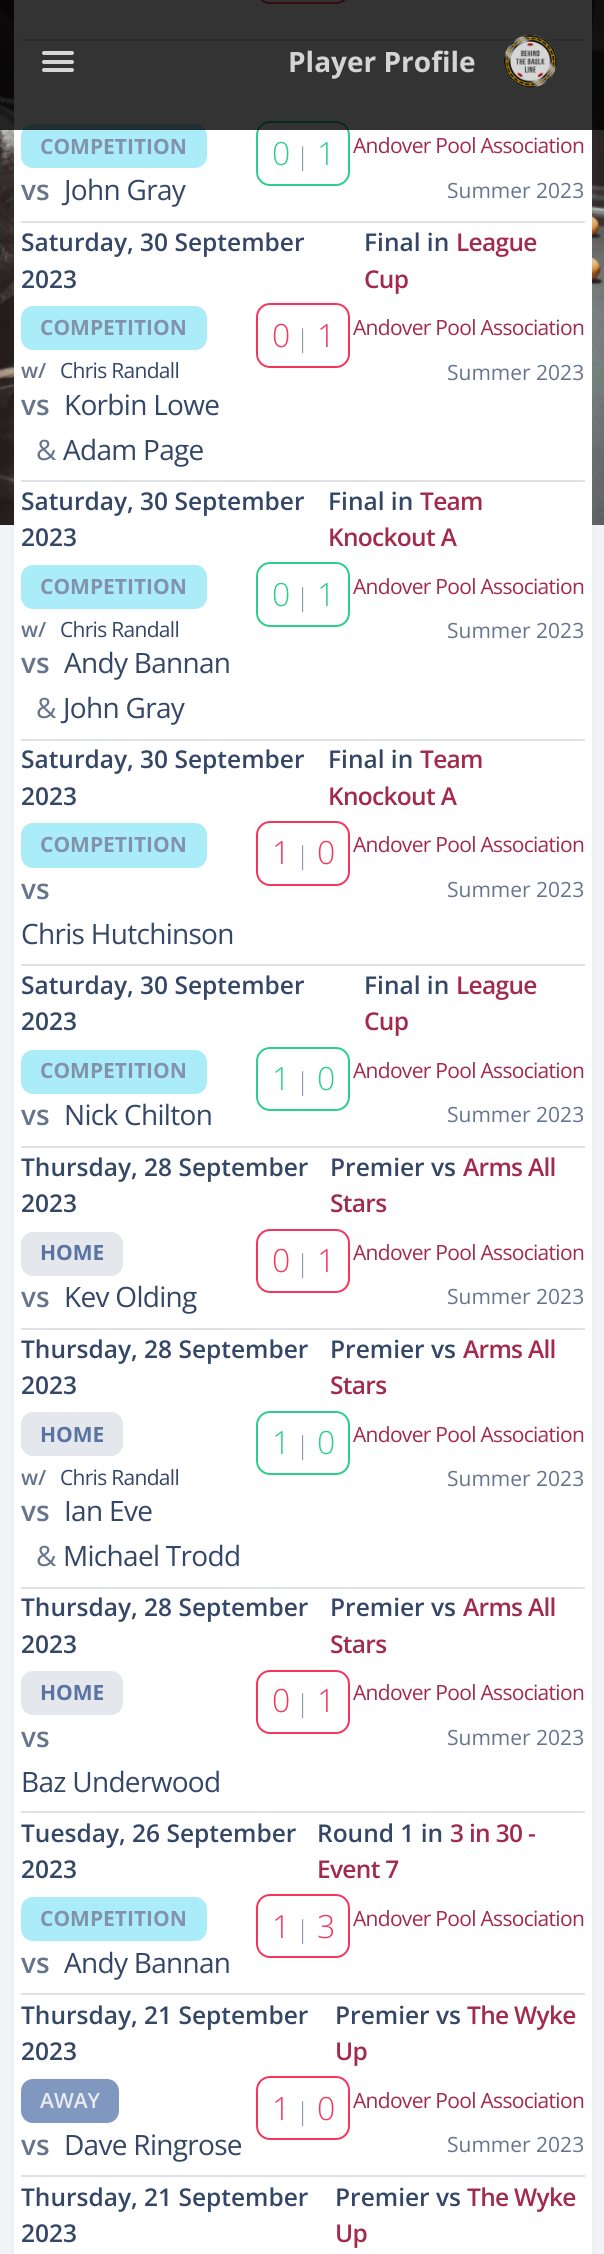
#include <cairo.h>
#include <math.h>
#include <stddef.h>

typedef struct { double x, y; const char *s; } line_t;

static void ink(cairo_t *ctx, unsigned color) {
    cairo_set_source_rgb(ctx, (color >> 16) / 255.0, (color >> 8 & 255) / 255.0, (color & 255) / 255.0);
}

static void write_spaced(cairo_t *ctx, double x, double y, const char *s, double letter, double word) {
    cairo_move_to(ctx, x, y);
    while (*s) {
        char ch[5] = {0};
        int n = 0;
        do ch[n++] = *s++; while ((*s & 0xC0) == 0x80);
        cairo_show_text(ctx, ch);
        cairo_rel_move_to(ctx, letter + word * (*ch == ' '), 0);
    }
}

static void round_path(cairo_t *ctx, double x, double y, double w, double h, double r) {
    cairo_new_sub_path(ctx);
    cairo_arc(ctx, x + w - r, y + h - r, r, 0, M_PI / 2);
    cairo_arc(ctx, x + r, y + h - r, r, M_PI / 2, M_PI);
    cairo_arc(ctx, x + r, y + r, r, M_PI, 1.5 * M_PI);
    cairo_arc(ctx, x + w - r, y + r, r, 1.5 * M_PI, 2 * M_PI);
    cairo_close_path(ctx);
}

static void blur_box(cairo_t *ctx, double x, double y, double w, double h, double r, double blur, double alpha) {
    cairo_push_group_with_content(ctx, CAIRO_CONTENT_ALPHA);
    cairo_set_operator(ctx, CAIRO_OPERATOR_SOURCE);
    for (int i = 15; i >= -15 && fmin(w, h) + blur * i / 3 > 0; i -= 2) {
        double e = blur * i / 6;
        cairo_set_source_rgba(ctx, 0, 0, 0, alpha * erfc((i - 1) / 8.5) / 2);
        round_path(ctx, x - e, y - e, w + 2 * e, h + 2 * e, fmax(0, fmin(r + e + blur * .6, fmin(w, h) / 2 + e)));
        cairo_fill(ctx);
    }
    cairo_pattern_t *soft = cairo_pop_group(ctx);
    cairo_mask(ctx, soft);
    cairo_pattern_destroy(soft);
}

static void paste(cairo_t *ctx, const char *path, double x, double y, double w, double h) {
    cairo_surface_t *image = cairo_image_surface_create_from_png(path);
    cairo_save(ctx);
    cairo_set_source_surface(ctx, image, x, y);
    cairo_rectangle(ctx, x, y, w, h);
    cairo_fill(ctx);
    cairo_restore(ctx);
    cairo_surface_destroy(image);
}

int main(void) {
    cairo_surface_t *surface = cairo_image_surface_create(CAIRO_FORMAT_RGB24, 604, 2254);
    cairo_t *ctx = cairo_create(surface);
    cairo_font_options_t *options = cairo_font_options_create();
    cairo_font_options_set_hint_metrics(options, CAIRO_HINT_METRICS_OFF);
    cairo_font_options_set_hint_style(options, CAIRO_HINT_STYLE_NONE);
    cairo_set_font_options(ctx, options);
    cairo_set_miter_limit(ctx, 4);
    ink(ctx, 0xF8F9FA);
    cairo_paint(ctx);
    paste(ctx, "media/1.png", 0, 0, 604, 525);
    ink(ctx, 0x8898AA);
    blur_box(ctx, 14, -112, 578, 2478, 28, 28, 0.15);
    ink(ctx, 0xFFFFFF);
    cairo_rectangle(ctx, 14, 0, 578, 2254);
    cairo_fill(ctx);
    ink(ctx, 0xDEE2E6);
    cairo_rectangle(ctx, 21, 39, 564, 2);
    cairo_fill(ctx);
    round_path(ctx, 257, -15, 92, 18, 13);
    ink(ctx, 0xF5365C);
    cairo_stroke(ctx);
    ink(ctx, 0xAAEDF9);
    round_path(ctx, 21, 124, 186, 44, 12);
    cairo_fill(ctx);
    round_path(ctx, 257, 122, 92, 63, 13);
    ink(ctx, 0x2DCE89);
    cairo_stroke(ctx);
    cairo_set_source_rgba(ctx, 0, 0, 0, 0.8);
    cairo_rectangle(ctx, 0, 0, 604, 130);
    cairo_fill(ctx);
    cairo_set_source_rgba(ctx, 1, 1, 1, 0.8);
    round_path(ctx, 42, 51, 32, 4, 2);
    cairo_fill(ctx);
    round_path(ctx, 42, 60, 32, 4, 2);
    cairo_fill(ctx);
    round_path(ctx, 42, 68, 32, 4, 2);
    cairo_fill(ctx);
    cairo_select_font_face(ctx, "Open Sans", CAIRO_FONT_SLANT_NORMAL, CAIRO_FONT_WEIGHT_BOLD);
    cairo_set_font_size(ctx, 28);
    ink(ctx, 0xD5D4D5);
    cairo_move_to(ctx, 288, 72);
    cairo_show_text(ctx, "Player Profile");
    paste(ctx, "media/2.png", 504, 35, 53, 53);
    ink(ctx, 0xDEE2E6);
    cairo_rectangle(ctx, 21, 221, 564, 2);
    cairo_fill(ctx);
    cairo_set_font_size(ctx, 21);
    ink(ctx, 0x8392AB);
    cairo_move_to(ctx, 40, 154);
    cairo_show_text(ctx, "COMPETITION");
    cairo_select_font_face(ctx, "Open Sans SemiBold", CAIRO_FONT_SLANT_NORMAL, CAIRO_FONT_WEIGHT_NORMAL);
    cairo_set_font_size(ctx, 28);
    ink(ctx, 0x67748E);
    cairo_move_to(ctx, 21, 200);
    cairo_show_text(ctx, "vs");
    cairo_select_font_face(ctx, "Open Sans", CAIRO_FONT_SLANT_NORMAL, CAIRO_FONT_WEIGHT_NORMAL);
    ink(ctx, 0x344767);
    write_spaced(ctx, 64, 200, "John Gray", -0.7, 0);
    cairo_select_font_face(ctx, "Open Sans Light", CAIRO_FONT_SLANT_NORMAL, CAIRO_FONT_WEIGHT_NORMAL);
    cairo_set_font_size(ctx, 32);
    ink(ctx, 0x2DCE89);
    write_spaced(ctx, 272, 165, "0", -0.7, 0);
    cairo_set_font_size(ctx, 24.5);
    ink(ctx, 0x8392AB);
    write_spaced(ctx, 296, 165, "|", -0.7, 0);
    cairo_set_font_size(ctx, 32);
    ink(ctx, 0x2DCE89);
    write_spaced(ctx, 317, 165, "1", -0.7, 0);
    cairo_select_font_face(ctx, "Open Sans", CAIRO_FONT_SLANT_NORMAL, CAIRO_FONT_WEIGHT_NORMAL);
    cairo_set_font_size(ctx, 21);
    ink(ctx, 0xA22B4D);
    write_spaced(ctx, 353, 153, "Andover Pool Association", -0.7, 0);
    ink(ctx, 0x67748E);
    cairo_move_to(ctx, 447, 198);
    cairo_show_text(ctx, "Summer 2023");
    cairo_select_font_face(ctx, "Open Sans SemiBold", CAIRO_FONT_SLANT_NORMAL, CAIRO_FONT_WEIGHT_NORMAL);
    cairo_set_font_size(ctx, 24.5);
    ink(ctx, 0x344767);
    {
        static const line_t items[] = {
            {21, 251, "Saturday, 30 September"},
            {21, 288, "2023"},
            {364, 251, "Final in"},
        };
        for (size_t i = 0; i < sizeof items / sizeof *items; i++) {
            cairo_move_to(ctx, items[i].x, items[i].y);
            cairo_show_text(ctx, items[i].s);
        }
    }
    ink(ctx, 0xA22B4D);
    write_spaced(ctx, 456, 251, "League", -0.7, 0);
    write_spaced(ctx, 364, 288, "Cup", -0.7, 0);
    ink(ctx, 0xDEE2E6);
    cairo_rectangle(ctx, 21, 480, 564, 2);
    cairo_fill(ctx);
    ink(ctx, 0xAAEDF9);
    round_path(ctx, 21, 306, 186, 44, 12);
    cairo_fill(ctx);
    cairo_select_font_face(ctx, "Open Sans", CAIRO_FONT_SLANT_NORMAL, CAIRO_FONT_WEIGHT_BOLD);
    cairo_set_font_size(ctx, 21);
    ink(ctx, 0x8392AB);
    cairo_move_to(ctx, 40, 335);
    cairo_show_text(ctx, "COMPETITION");
    cairo_select_font_face(ctx, "Open Sans SemiBold", CAIRO_FONT_SLANT_NORMAL, CAIRO_FONT_WEIGHT_NORMAL);
    ink(ctx, 0x67748E);
    cairo_move_to(ctx, 21, 378);
    cairo_show_text(ctx, "w/");
    cairo_select_font_face(ctx, "Open Sans", CAIRO_FONT_SLANT_NORMAL, CAIRO_FONT_WEIGHT_NORMAL);
    ink(ctx, 0x344767);
    write_spaced(ctx, 60, 378, "Chris Randall", -0.7, 0);
    cairo_select_font_face(ctx, "Open Sans SemiBold", CAIRO_FONT_SLANT_NORMAL, CAIRO_FONT_WEIGHT_NORMAL);
    cairo_set_font_size(ctx, 28);
    ink(ctx, 0x67748E);
    cairo_move_to(ctx, 21, 415);
    cairo_show_text(ctx, "vs");
    cairo_select_font_face(ctx, "Open Sans", CAIRO_FONT_SLANT_NORMAL, CAIRO_FONT_WEIGHT_NORMAL);
    ink(ctx, 0x344767);
    write_spaced(ctx, 64, 415, "Korbin Lowe", -0.7, 0);
    ink(ctx, 0x67748E);
    cairo_move_to(ctx, 36, 460);
    cairo_show_text(ctx, "&");
    ink(ctx, 0x344767);
    write_spaced(ctx, 63, 460, "Adam Page", -0.7, 0);
    round_path(ctx, 257, 304, 92, 63, 13);
    ink(ctx, 0xF5365C);
    cairo_stroke(ctx);
    cairo_select_font_face(ctx, "Open Sans Light", CAIRO_FONT_SLANT_NORMAL, CAIRO_FONT_WEIGHT_NORMAL);
    cairo_set_font_size(ctx, 32);
    write_spaced(ctx, 272, 347, "0", -0.7, 0);
    cairo_set_font_size(ctx, 24.5);
    ink(ctx, 0x8392AB);
    write_spaced(ctx, 296, 347, "|", -0.7, 0);
    cairo_set_font_size(ctx, 32);
    ink(ctx, 0xF5365C);
    write_spaced(ctx, 317, 347, "1", -0.7, 0);
    cairo_select_font_face(ctx, "Open Sans", CAIRO_FONT_SLANT_NORMAL, CAIRO_FONT_WEIGHT_NORMAL);
    cairo_set_font_size(ctx, 21);
    ink(ctx, 0xA22B4D);
    write_spaced(ctx, 353, 335, "Andover Pool Association", -0.7, 0);
    ink(ctx, 0x67748E);
    cairo_move_to(ctx, 447, 380);
    cairo_show_text(ctx, "Summer 2023");
    cairo_select_font_face(ctx, "Open Sans SemiBold", CAIRO_FONT_SLANT_NORMAL, CAIRO_FONT_WEIGHT_NORMAL);
    cairo_set_font_size(ctx, 24.5);
    ink(ctx, 0x344767);
    {
        static const line_t items[] = {
            {21, 510, "Saturday, 30 September"},
            {21, 546, "2023"},
            {328, 510, "Final in"},
        };
        for (size_t i = 0; i < sizeof items / sizeof *items; i++) {
            cairo_move_to(ctx, items[i].x, items[i].y);
            cairo_show_text(ctx, items[i].s);
        }
    }
    ink(ctx, 0xA22B4D);
    write_spaced(ctx, 420, 510, "Team", -0.7, 0);
    write_spaced(ctx, 328, 546, "Knockout A", -0.7, 0);
    ink(ctx, 0xDEE2E6);
    cairo_rectangle(ctx, 21, 739, 564, 2);
    cairo_fill(ctx);
    ink(ctx, 0xAAEDF9);
    round_path(ctx, 21, 565, 186, 44, 12);
    cairo_fill(ctx);
    cairo_select_font_face(ctx, "Open Sans", CAIRO_FONT_SLANT_NORMAL, CAIRO_FONT_WEIGHT_BOLD);
    cairo_set_font_size(ctx, 21);
    ink(ctx, 0x8392AB);
    cairo_move_to(ctx, 40, 594);
    cairo_show_text(ctx, "COMPETITION");
    cairo_select_font_face(ctx, "Open Sans SemiBold", CAIRO_FONT_SLANT_NORMAL, CAIRO_FONT_WEIGHT_NORMAL);
    ink(ctx, 0x67748E);
    cairo_move_to(ctx, 21, 637);
    cairo_show_text(ctx, "w/");
    cairo_select_font_face(ctx, "Open Sans", CAIRO_FONT_SLANT_NORMAL, CAIRO_FONT_WEIGHT_NORMAL);
    ink(ctx, 0x344767);
    write_spaced(ctx, 60, 637, "Chris Randall", -0.7, 0);
    cairo_select_font_face(ctx, "Open Sans SemiBold", CAIRO_FONT_SLANT_NORMAL, CAIRO_FONT_WEIGHT_NORMAL);
    cairo_set_font_size(ctx, 28);
    ink(ctx, 0x67748E);
    cairo_move_to(ctx, 21, 673);
    cairo_show_text(ctx, "vs");
    cairo_select_font_face(ctx, "Open Sans", CAIRO_FONT_SLANT_NORMAL, CAIRO_FONT_WEIGHT_NORMAL);
    ink(ctx, 0x344767);
    write_spaced(ctx, 64, 673, "Andy Bannan", -0.7, 0);
    ink(ctx, 0x67748E);
    cairo_move_to(ctx, 36, 718);
    cairo_show_text(ctx, "&");
    ink(ctx, 0x344767);
    write_spaced(ctx, 63, 718, "John Gray", -0.7, 0);
    round_path(ctx, 257, 563, 92, 63, 13);
    ink(ctx, 0x2DCE89);
    cairo_stroke(ctx);
    cairo_select_font_face(ctx, "Open Sans Light", CAIRO_FONT_SLANT_NORMAL, CAIRO_FONT_WEIGHT_NORMAL);
    cairo_set_font_size(ctx, 32);
    write_spaced(ctx, 272, 606, "0", -0.7, 0);
    cairo_set_font_size(ctx, 24.5);
    ink(ctx, 0x8392AB);
    write_spaced(ctx, 296, 606, "|", -0.7, 0);
    cairo_set_font_size(ctx, 32);
    ink(ctx, 0x2DCE89);
    write_spaced(ctx, 317, 606, "1", -0.7, 0);
    cairo_select_font_face(ctx, "Open Sans", CAIRO_FONT_SLANT_NORMAL, CAIRO_FONT_WEIGHT_NORMAL);
    cairo_set_font_size(ctx, 21);
    ink(ctx, 0xA22B4D);
    write_spaced(ctx, 353, 594, "Andover Pool Association", -0.7, 0);
    ink(ctx, 0x67748E);
    cairo_move_to(ctx, 447, 638);
    cairo_show_text(ctx, "Summer 2023");
    cairo_select_font_face(ctx, "Open Sans SemiBold", CAIRO_FONT_SLANT_NORMAL, CAIRO_FONT_WEIGHT_NORMAL);
    cairo_set_font_size(ctx, 24.5);
    ink(ctx, 0x344767);
    {
        static const line_t items[] = {
            {21, 768, "Saturday, 30 September"},
            {21, 805, "2023"},
            {328, 768, "Final in"},
        };
        for (size_t i = 0; i < sizeof items / sizeof *items; i++) {
            cairo_move_to(ctx, items[i].x, items[i].y);
            cairo_show_text(ctx, items[i].s);
        }
    }
    ink(ctx, 0xA22B4D);
    write_spaced(ctx, 420, 768, "Team", -0.7, 0);
    write_spaced(ctx, 328, 805, "Knockout A", -0.7, 0);
    ink(ctx, 0xDEE2E6);
    cairo_rectangle(ctx, 21, 964, 564, 2);
    cairo_fill(ctx);
    ink(ctx, 0xAAEDF9);
    round_path(ctx, 21, 823, 186, 45, 12);
    cairo_fill(ctx);
    cairo_select_font_face(ctx, "Open Sans", CAIRO_FONT_SLANT_NORMAL, CAIRO_FONT_WEIGHT_BOLD);
    cairo_set_font_size(ctx, 21);
    ink(ctx, 0x8392AB);
    cairo_move_to(ctx, 40, 852);
    cairo_show_text(ctx, "COMPETITION");
    cairo_select_font_face(ctx, "Open Sans SemiBold", CAIRO_FONT_SLANT_NORMAL, CAIRO_FONT_WEIGHT_NORMAL);
    cairo_set_font_size(ctx, 28);
    ink(ctx, 0x67748E);
    cairo_move_to(ctx, 21, 899);
    cairo_show_text(ctx, "vs");
    cairo_select_font_face(ctx, "Open Sans", CAIRO_FONT_SLANT_NORMAL, CAIRO_FONT_WEIGHT_NORMAL);
    ink(ctx, 0x344767);
    write_spaced(ctx, 21, 944, "Chris Hutchinson", -0.7, 0);
    round_path(ctx, 257, 822, 92, 63, 13);
    ink(ctx, 0xF5365C);
    cairo_stroke(ctx);
    cairo_select_font_face(ctx, "Open Sans Light", CAIRO_FONT_SLANT_NORMAL, CAIRO_FONT_WEIGHT_NORMAL);
    cairo_set_font_size(ctx, 32);
    write_spaced(ctx, 272, 864, "1", -0.7, 0);
    cairo_set_font_size(ctx, 24.5);
    ink(ctx, 0x8392AB);
    write_spaced(ctx, 296, 864, "|", -0.7, 0);
    cairo_set_font_size(ctx, 32);
    ink(ctx, 0xF5365C);
    write_spaced(ctx, 317, 864, "0", -0.7, 0);
    cairo_select_font_face(ctx, "Open Sans", CAIRO_FONT_SLANT_NORMAL, CAIRO_FONT_WEIGHT_NORMAL);
    cairo_set_font_size(ctx, 21);
    ink(ctx, 0xA22B4D);
    write_spaced(ctx, 353, 852, "Andover Pool Association", -0.7, 0);
    ink(ctx, 0x67748E);
    cairo_move_to(ctx, 447, 897);
    cairo_show_text(ctx, "Summer 2023");
    cairo_select_font_face(ctx, "Open Sans SemiBold", CAIRO_FONT_SLANT_NORMAL, CAIRO_FONT_WEIGHT_NORMAL);
    cairo_set_font_size(ctx, 24.5);
    ink(ctx, 0x344767);
    {
        static const line_t items[] = {
            {21, 994, "Saturday, 30 September"},
            {21, 1030, "2023"},
            {364, 994, "Final in"},
        };
        for (size_t i = 0; i < sizeof items / sizeof *items; i++) {
            cairo_move_to(ctx, items[i].x, items[i].y);
            cairo_show_text(ctx, items[i].s);
        }
    }
    ink(ctx, 0xA22B4D);
    write_spaced(ctx, 456, 994, "League", -0.7, 0);
    write_spaced(ctx, 364, 1030, "Cup", -0.7, 0);
    ink(ctx, 0xDEE2E6);
    cairo_rectangle(ctx, 21, 1146, 564, 2);
    cairo_fill(ctx);
    ink(ctx, 0xAAEDF9);
    round_path(ctx, 21, 1050, 186, 44, 12);
    cairo_fill(ctx);
    cairo_select_font_face(ctx, "Open Sans", CAIRO_FONT_SLANT_NORMAL, CAIRO_FONT_WEIGHT_BOLD);
    cairo_set_font_size(ctx, 21);
    ink(ctx, 0x8392AB);
    cairo_move_to(ctx, 40, 1078);
    cairo_show_text(ctx, "COMPETITION");
    cairo_select_font_face(ctx, "Open Sans SemiBold", CAIRO_FONT_SLANT_NORMAL, CAIRO_FONT_WEIGHT_NORMAL);
    cairo_set_font_size(ctx, 28);
    ink(ctx, 0x67748E);
    cairo_move_to(ctx, 21, 1125);
    cairo_show_text(ctx, "vs");
    cairo_select_font_face(ctx, "Open Sans", CAIRO_FONT_SLANT_NORMAL, CAIRO_FONT_WEIGHT_NORMAL);
    ink(ctx, 0x344767);
    write_spaced(ctx, 64, 1125, "Nick Chilton", -0.7, 0);
    round_path(ctx, 257, 1048, 92, 62, 13);
    ink(ctx, 0x2DCE89);
    cairo_stroke(ctx);
    cairo_select_font_face(ctx, "Open Sans Light", CAIRO_FONT_SLANT_NORMAL, CAIRO_FONT_WEIGHT_NORMAL);
    cairo_set_font_size(ctx, 32);
    write_spaced(ctx, 272, 1090, "1", -0.7, 0);
    cairo_set_font_size(ctx, 24.5);
    ink(ctx, 0x8392AB);
    write_spaced(ctx, 296, 1090, "|", -0.7, 0);
    cairo_set_font_size(ctx, 32);
    ink(ctx, 0x2DCE89);
    write_spaced(ctx, 317, 1090, "0", -0.7, 0);
    cairo_select_font_face(ctx, "Open Sans", CAIRO_FONT_SLANT_NORMAL, CAIRO_FONT_WEIGHT_NORMAL);
    cairo_set_font_size(ctx, 21);
    ink(ctx, 0xA22B4D);
    write_spaced(ctx, 353, 1078, "Andover Pool Association", -0.7, 0);
    ink(ctx, 0x67748E);
    cairo_move_to(ctx, 447, 1122);
    cairo_show_text(ctx, "Summer 2023");
    cairo_select_font_face(ctx, "Open Sans SemiBold", CAIRO_FONT_SLANT_NORMAL, CAIRO_FONT_WEIGHT_NORMAL);
    cairo_set_font_size(ctx, 24.5);
    ink(ctx, 0x344767);
    {
        static const line_t items[] = {
            {21, 1176, "Thursday, 28 September"},
            {21, 1212, "2023"},
            {330, 1176, "Premier vs"},
        };
        for (size_t i = 0; i < sizeof items / sizeof *items; i++) {
            cairo_move_to(ctx, items[i].x, items[i].y);
            cairo_show_text(ctx, items[i].s);
        }
    }
    ink(ctx, 0xA22B4D);
    write_spaced(ctx, 463, 1176, "Arms All", -0.7, 0);
    write_spaced(ctx, 330, 1212, "Stars", -0.7, 0);
    ink(ctx, 0xDEE2E6);
    cairo_rectangle(ctx, 21, 1328, 564, 2);
    cairo_fill(ctx);
    ink(ctx, 0xE4E8ED);
    round_path(ctx, 21, 1232, 102, 44, 12);
    cairo_fill(ctx);
    cairo_select_font_face(ctx, "Open Sans", CAIRO_FONT_SLANT_NORMAL, CAIRO_FONT_WEIGHT_BOLD);
    cairo_set_font_size(ctx, 21);
    ink(ctx, 0x5974A2);
    cairo_move_to(ctx, 40, 1260);
    cairo_show_text(ctx, "HOME");
    cairo_select_font_face(ctx, "Open Sans SemiBold", CAIRO_FONT_SLANT_NORMAL, CAIRO_FONT_WEIGHT_NORMAL);
    cairo_set_font_size(ctx, 28);
    ink(ctx, 0x67748E);
    cairo_move_to(ctx, 21, 1307);
    cairo_show_text(ctx, "vs");
    cairo_select_font_face(ctx, "Open Sans", CAIRO_FONT_SLANT_NORMAL, CAIRO_FONT_WEIGHT_NORMAL);
    ink(ctx, 0x344767);
    write_spaced(ctx, 64, 1307, "Kev Olding", -0.7, 0);
    round_path(ctx, 257, 1230, 92, 62, 13);
    ink(ctx, 0xF5365C);
    cairo_stroke(ctx);
    cairo_select_font_face(ctx, "Open Sans Light", CAIRO_FONT_SLANT_NORMAL, CAIRO_FONT_WEIGHT_NORMAL);
    cairo_set_font_size(ctx, 32);
    write_spaced(ctx, 272, 1272, "0", -0.7, 0);
    cairo_set_font_size(ctx, 24.5);
    ink(ctx, 0x8392AB);
    write_spaced(ctx, 296, 1272, "|", -0.7, 0);
    cairo_set_font_size(ctx, 32);
    ink(ctx, 0xF5365C);
    write_spaced(ctx, 317, 1272, "1", -0.7, 0);
    cairo_select_font_face(ctx, "Open Sans", CAIRO_FONT_SLANT_NORMAL, CAIRO_FONT_WEIGHT_NORMAL);
    cairo_set_font_size(ctx, 21);
    ink(ctx, 0xA22B4D);
    write_spaced(ctx, 353, 1260, "Andover Pool Association", -0.7, 0);
    ink(ctx, 0x67748E);
    cairo_move_to(ctx, 447, 1304);
    cairo_show_text(ctx, "Summer 2023");
    cairo_select_font_face(ctx, "Open Sans SemiBold", CAIRO_FONT_SLANT_NORMAL, CAIRO_FONT_WEIGHT_NORMAL);
    cairo_set_font_size(ctx, 24.5);
    ink(ctx, 0x344767);
    {
        static const line_t items[] = {
            {21, 1358, "Thursday, 28 September"},
            {21, 1394, "2023"},
            {330, 1358, "Premier vs"},
        };
        for (size_t i = 0; i < sizeof items / sizeof *items; i++) {
            cairo_move_to(ctx, items[i].x, items[i].y);
            cairo_show_text(ctx, items[i].s);
        }
    }
    ink(ctx, 0xA22B4D);
    write_spaced(ctx, 463, 1358, "Arms All", -0.7, 0);
    write_spaced(ctx, 330, 1394, "Stars", -0.7, 0);
    ink(ctx, 0xDEE2E6);
    cairo_rectangle(ctx, 21, 1587, 564, 2);
    cairo_fill(ctx);
    ink(ctx, 0xE4E8ED);
    round_path(ctx, 21, 1412, 102, 44, 12);
    cairo_fill(ctx);
    cairo_select_font_face(ctx, "Open Sans", CAIRO_FONT_SLANT_NORMAL, CAIRO_FONT_WEIGHT_BOLD);
    cairo_set_font_size(ctx, 21);
    ink(ctx, 0x5974A2);
    cairo_move_to(ctx, 40, 1442);
    cairo_show_text(ctx, "HOME");
    cairo_select_font_face(ctx, "Open Sans SemiBold", CAIRO_FONT_SLANT_NORMAL, CAIRO_FONT_WEIGHT_NORMAL);
    ink(ctx, 0x67748E);
    cairo_move_to(ctx, 21, 1485);
    cairo_show_text(ctx, "w/");
    cairo_select_font_face(ctx, "Open Sans", CAIRO_FONT_SLANT_NORMAL, CAIRO_FONT_WEIGHT_NORMAL);
    ink(ctx, 0x344767);
    write_spaced(ctx, 60, 1485, "Chris Randall", -0.7, 0);
    cairo_select_font_face(ctx, "Open Sans SemiBold", CAIRO_FONT_SLANT_NORMAL, CAIRO_FONT_WEIGHT_NORMAL);
    cairo_set_font_size(ctx, 28);
    ink(ctx, 0x67748E);
    cairo_move_to(ctx, 21, 1521);
    cairo_show_text(ctx, "vs");
    cairo_select_font_face(ctx, "Open Sans", CAIRO_FONT_SLANT_NORMAL, CAIRO_FONT_WEIGHT_NORMAL);
    ink(ctx, 0x344767);
    write_spaced(ctx, 64, 1521, "Ian Eve", -0.7, 0);
    ink(ctx, 0x67748E);
    cairo_move_to(ctx, 36, 1566);
    cairo_show_text(ctx, "&");
    ink(ctx, 0x344767);
    write_spaced(ctx, 63, 1566, "Michael Trodd", -0.7, 0);
    round_path(ctx, 257, 1412, 92, 62, 13);
    ink(ctx, 0x2DCE89);
    cairo_stroke(ctx);
    cairo_select_font_face(ctx, "Open Sans Light", CAIRO_FONT_SLANT_NORMAL, CAIRO_FONT_WEIGHT_NORMAL);
    cairo_set_font_size(ctx, 32);
    write_spaced(ctx, 272, 1454, "1", -0.7, 0);
    cairo_set_font_size(ctx, 24.5);
    ink(ctx, 0x8392AB);
    write_spaced(ctx, 296, 1454, "|", -0.7, 0);
    cairo_set_font_size(ctx, 32);
    ink(ctx, 0x2DCE89);
    write_spaced(ctx, 317, 1454, "0", -0.7, 0);
    cairo_select_font_face(ctx, "Open Sans", CAIRO_FONT_SLANT_NORMAL, CAIRO_FONT_WEIGHT_NORMAL);
    cairo_set_font_size(ctx, 21);
    ink(ctx, 0xA22B4D);
    write_spaced(ctx, 353, 1442, "Andover Pool Association", -0.7, 0);
    ink(ctx, 0x67748E);
    cairo_move_to(ctx, 447, 1486);
    cairo_show_text(ctx, "Summer 2023");
    cairo_select_font_face(ctx, "Open Sans SemiBold", CAIRO_FONT_SLANT_NORMAL, CAIRO_FONT_WEIGHT_NORMAL);
    cairo_set_font_size(ctx, 24.5);
    ink(ctx, 0x344767);
    {
        static const line_t items[] = {
            {21, 1616, "Thursday, 28 September"},
            {21, 1653, "2023"},
            {330, 1616, "Premier vs"},
        };
        for (size_t i = 0; i < sizeof items / sizeof *items; i++) {
            cairo_move_to(ctx, items[i].x, items[i].y);
            cairo_show_text(ctx, items[i].s);
        }
    }
    ink(ctx, 0xA22B4D);
    write_spaced(ctx, 463, 1616, "Arms All", -0.7, 0);
    write_spaced(ctx, 330, 1653, "Stars", -0.7, 0);
    ink(ctx, 0xDEE2E6);
    cairo_rectangle(ctx, 21, 1811, 564, 2);
    cairo_fill(ctx);
    ink(ctx, 0xE4E8ED);
    round_path(ctx, 21, 1671, 102, 44, 12);
    cairo_fill(ctx);
    cairo_select_font_face(ctx, "Open Sans", CAIRO_FONT_SLANT_NORMAL, CAIRO_FONT_WEIGHT_BOLD);
    cairo_set_font_size(ctx, 21);
    ink(ctx, 0x5974A2);
    cairo_move_to(ctx, 40, 1700);
    cairo_show_text(ctx, "HOME");
    cairo_select_font_face(ctx, "Open Sans SemiBold", CAIRO_FONT_SLANT_NORMAL, CAIRO_FONT_WEIGHT_NORMAL);
    cairo_set_font_size(ctx, 28);
    ink(ctx, 0x67748E);
    cairo_move_to(ctx, 21, 1747);
    cairo_show_text(ctx, "vs");
    cairo_select_font_face(ctx, "Open Sans", CAIRO_FONT_SLANT_NORMAL, CAIRO_FONT_WEIGHT_NORMAL);
    ink(ctx, 0x344767);
    write_spaced(ctx, 21, 1792, "Baz Underwood", -0.7, 0);
    round_path(ctx, 257, 1671, 92, 62, 13);
    ink(ctx, 0xF5365C);
    cairo_stroke(ctx);
    cairo_select_font_face(ctx, "Open Sans Light", CAIRO_FONT_SLANT_NORMAL, CAIRO_FONT_WEIGHT_NORMAL);
    cairo_set_font_size(ctx, 32);
    write_spaced(ctx, 272, 1712, "0", -0.7, 0);
    cairo_set_font_size(ctx, 24.5);
    ink(ctx, 0x8392AB);
    write_spaced(ctx, 296, 1712, "|", -0.7, 0);
    cairo_set_font_size(ctx, 32);
    ink(ctx, 0xF5365C);
    write_spaced(ctx, 317, 1712, "1", -0.7, 0);
    cairo_select_font_face(ctx, "Open Sans", CAIRO_FONT_SLANT_NORMAL, CAIRO_FONT_WEIGHT_NORMAL);
    cairo_set_font_size(ctx, 21);
    ink(ctx, 0xA22B4D);
    write_spaced(ctx, 353, 1700, "Andover Pool Association", -0.7, 0);
    ink(ctx, 0x67748E);
    cairo_move_to(ctx, 447, 1745);
    cairo_show_text(ctx, "Summer 2023");
    cairo_select_font_face(ctx, "Open Sans SemiBold", CAIRO_FONT_SLANT_NORMAL, CAIRO_FONT_WEIGHT_NORMAL);
    cairo_set_font_size(ctx, 24.5);
    ink(ctx, 0x344767);
    {
        static const line_t items[] = {
            {21, 1842, "Tuesday, 26 September"},
            {21, 1878, "2023"},
            {317, 1842, "Round 1 in"},
        };
        for (size_t i = 0; i < sizeof items / sizeof *items; i++) {
            cairo_move_to(ctx, items[i].x, items[i].y);
            cairo_show_text(ctx, items[i].s);
        }
    }
    ink(ctx, 0xA22B4D);
    write_spaced(ctx, 450, 1842, "3 in 30 -", -0.7, 0);
    write_spaced(ctx, 317, 1878, "Event 7", -0.7, 0);
    ink(ctx, 0xDEE2E6);
    cairo_rectangle(ctx, 21, 1993, 564, 2);
    cairo_fill(ctx);
    ink(ctx, 0xAAEDF9);
    round_path(ctx, 21, 1897, 186, 44, 12);
    cairo_fill(ctx);
    cairo_select_font_face(ctx, "Open Sans", CAIRO_FONT_SLANT_NORMAL, CAIRO_FONT_WEIGHT_BOLD);
    cairo_set_font_size(ctx, 21);
    ink(ctx, 0x8392AB);
    cairo_move_to(ctx, 40, 1926);
    cairo_show_text(ctx, "COMPETITION");
    cairo_select_font_face(ctx, "Open Sans SemiBold", CAIRO_FONT_SLANT_NORMAL, CAIRO_FONT_WEIGHT_NORMAL);
    cairo_set_font_size(ctx, 28);
    ink(ctx, 0x67748E);
    cairo_move_to(ctx, 21, 1973);
    cairo_show_text(ctx, "vs");
    cairo_select_font_face(ctx, "Open Sans", CAIRO_FONT_SLANT_NORMAL, CAIRO_FONT_WEIGHT_NORMAL);
    ink(ctx, 0x344767);
    write_spaced(ctx, 64, 1973, "Andy Bannan", -0.7, 0);
    round_path(ctx, 257, 1895, 92, 62, 13);
    ink(ctx, 0xF5365C);
    cairo_stroke(ctx);
    cairo_select_font_face(ctx, "Open Sans Light", CAIRO_FONT_SLANT_NORMAL, CAIRO_FONT_WEIGHT_NORMAL);
    cairo_set_font_size(ctx, 32);
    write_spaced(ctx, 272, 1938, "1", -0.7, 0);
    cairo_set_font_size(ctx, 24.5);
    ink(ctx, 0x8392AB);
    write_spaced(ctx, 296, 1938, "|", -0.7, 0);
    cairo_set_font_size(ctx, 32);
    ink(ctx, 0xF5365C);
    write_spaced(ctx, 317, 1938, "3", -0.7, 0);
    cairo_select_font_face(ctx, "Open Sans", CAIRO_FONT_SLANT_NORMAL, CAIRO_FONT_WEIGHT_NORMAL);
    cairo_set_font_size(ctx, 21);
    ink(ctx, 0xA22B4D);
    write_spaced(ctx, 353, 1926, "Andover Pool Association", -0.7, 0);
    cairo_select_font_face(ctx, "Open Sans SemiBold", CAIRO_FONT_SLANT_NORMAL, CAIRO_FONT_WEIGHT_NORMAL);
    cairo_set_font_size(ctx, 24.5);
    ink(ctx, 0x344767);
    {
        static const line_t items[] = {
            {21, 2024, "Thursday, 21 September"},
            {21, 2060, "2023"},
            {335, 2024, "Premier vs"},
        };
        for (size_t i = 0; i < sizeof items / sizeof *items; i++) {
            cairo_move_to(ctx, items[i].x, items[i].y);
            cairo_show_text(ctx, items[i].s);
        }
    }
    ink(ctx, 0xA22B4D);
    write_spaced(ctx, 467, 2024, "The Wyke", -0.7, 0);
    write_spaced(ctx, 335, 2060, "Up", -0.7, 0);
    ink(ctx, 0xDEE2E6);
    cairo_rectangle(ctx, 21, 2175, 564, 2);
    cairo_fill(ctx);
    ink(ctx, 0x8097BF);
    round_path(ctx, 21, 2079, 98, 44, 12);
    cairo_fill(ctx);
    cairo_set_font_size(ctx, 21);
    ink(ctx, 0xE9ECEF);
    cairo_move_to(ctx, 40, 2108);
    cairo_show_text(ctx, "AWAY");
    cairo_set_font_size(ctx, 28);
    ink(ctx, 0x67748E);
    cairo_move_to(ctx, 21, 2155);
    cairo_show_text(ctx, "vs");
    cairo_select_font_face(ctx, "Open Sans", CAIRO_FONT_SLANT_NORMAL, CAIRO_FONT_WEIGHT_NORMAL);
    ink(ctx, 0x344767);
    write_spaced(ctx, 64, 2155, "Dave Ringrose", -0.7, 0);
    round_path(ctx, 257, 2077, 92, 62, 13);
    ink(ctx, 0xF5365C);
    cairo_stroke(ctx);
    cairo_select_font_face(ctx, "Open Sans Light", CAIRO_FONT_SLANT_NORMAL, CAIRO_FONT_WEIGHT_NORMAL);
    cairo_set_font_size(ctx, 32);
    write_spaced(ctx, 272, 2120, "1", -0.7, 0);
    cairo_set_font_size(ctx, 24.5);
    ink(ctx, 0x8392AB);
    write_spaced(ctx, 296, 2120, "|", -0.7, 0);
    cairo_set_font_size(ctx, 32);
    ink(ctx, 0xF5365C);
    write_spaced(ctx, 317, 2120, "0", -0.7, 0);
    cairo_select_font_face(ctx, "Open Sans", CAIRO_FONT_SLANT_NORMAL, CAIRO_FONT_WEIGHT_NORMAL);
    cairo_set_font_size(ctx, 21);
    ink(ctx, 0xA22B4D);
    write_spaced(ctx, 353, 2108, "Andover Pool Association", -0.7, 0);
    ink(ctx, 0x67748E);
    cairo_move_to(ctx, 447, 2152);
    cairo_show_text(ctx, "Summer 2023");
    cairo_select_font_face(ctx, "Open Sans SemiBold", CAIRO_FONT_SLANT_NORMAL, CAIRO_FONT_WEIGHT_NORMAL);
    cairo_set_font_size(ctx, 24.5);
    ink(ctx, 0x344767);
    {
        static const line_t items[] = {
            {21, 2206, "Thursday, 21 September"},
            {21, 2242, "2023"},
            {335, 2206, "Premier vs"},
        };
        for (size_t i = 0; i < sizeof items / sizeof *items; i++) {
            cairo_move_to(ctx, items[i].x, items[i].y);
            cairo_show_text(ctx, items[i].s);
        }
    }
    ink(ctx, 0xA22B4D);
    write_spaced(ctx, 467, 2206, "The Wyke", -0.7, 0);
    write_spaced(ctx, 335, 2242, "Up", -0.7, 0);
    cairo_surface_write_to_png(surface, "image.png");
    cairo_font_options_destroy(options);
    cairo_destroy(ctx);
    cairo_surface_destroy(surface);
    return 0;
}
